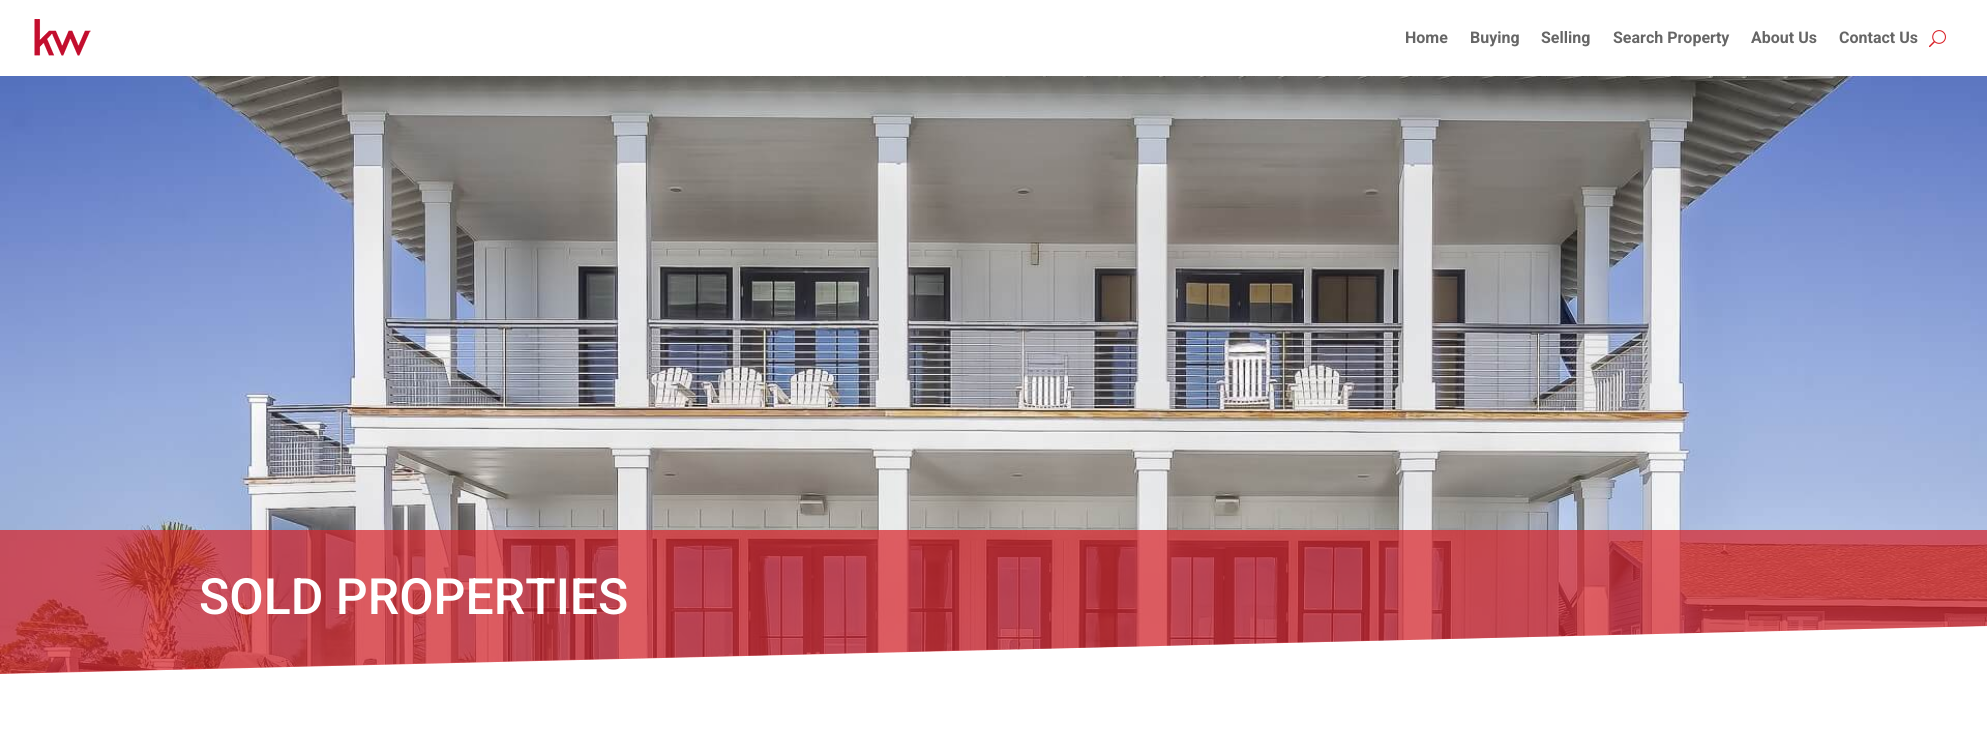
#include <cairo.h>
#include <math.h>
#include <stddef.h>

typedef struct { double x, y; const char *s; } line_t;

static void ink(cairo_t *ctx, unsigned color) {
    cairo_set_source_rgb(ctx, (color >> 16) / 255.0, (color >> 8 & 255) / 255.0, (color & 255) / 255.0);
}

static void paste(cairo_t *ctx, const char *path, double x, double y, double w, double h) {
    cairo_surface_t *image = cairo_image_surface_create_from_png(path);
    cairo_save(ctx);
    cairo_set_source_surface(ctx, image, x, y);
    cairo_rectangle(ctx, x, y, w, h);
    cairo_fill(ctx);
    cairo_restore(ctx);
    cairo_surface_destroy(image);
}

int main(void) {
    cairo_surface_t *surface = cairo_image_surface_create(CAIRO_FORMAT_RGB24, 1987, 747);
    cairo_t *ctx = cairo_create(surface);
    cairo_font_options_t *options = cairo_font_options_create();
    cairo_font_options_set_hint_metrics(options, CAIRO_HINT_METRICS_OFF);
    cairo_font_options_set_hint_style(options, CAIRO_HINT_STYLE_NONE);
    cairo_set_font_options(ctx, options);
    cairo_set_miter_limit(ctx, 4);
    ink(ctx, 0xFFFFFF);
    cairo_paint(ctx);
    paste(ctx, "media/1.png", 34, 19, 57, 37);
    cairo_select_font_face(ctx, "Roboto", CAIRO_FONT_SLANT_NORMAL, CAIRO_FONT_WEIGHT_BOLD);
    cairo_set_font_size(ctx, 16);
    ink(ctx, 0x666666);
    {
        static const line_t items[] = {
            {1405, 43, "Home"},
            {1470, 43, "Buying"},
            {1541, 43, "Selling"},
            {1613, 43, "Search Property"},
            {1751, 43, "About Us"},
            {1839, 43, "Contact Us"},
        };
        for (size_t i = 0; i < sizeof items / sizeof *items; i++) {
            cairo_move_to(ctx, items[i].x, items[i].y);
            cairo_show_text(ctx, items[i].s);
        }
    }
    paste(ctx, "media/2.png", 1929, 30, 17, 18);
    paste(ctx, "media/3.png", 0, 76, 1987, 598);
    cairo_set_source_rgba(ctx, 0.851, 0.129, 0.157, 0.7);
    cairo_new_path(ctx);
    cairo_move_to(ctx, 0, 530);
    cairo_line_to(ctx, 0, 674);
    cairo_line_to(ctx, 1987, 626);
    cairo_line_to(ctx, 1987, 530);
    cairo_close_path(ctx);
    cairo_fill(ctx);
    cairo_select_font_face(ctx, "Roboto Medium", CAIRO_FONT_SLANT_NORMAL, CAIRO_FONT_WEIGHT_NORMAL);
    cairo_set_font_size(ctx, 50);
    ink(ctx, 0xFFFFFF);
    cairo_move_to(ctx, 199, 614);
    cairo_show_text(ctx, "SOLD PROPERTIES");
    cairo_surface_write_to_png(surface, "image.png");
    cairo_font_options_destroy(options);
    cairo_destroy(ctx);
    cairo_surface_destroy(surface);
    return 0;
}
